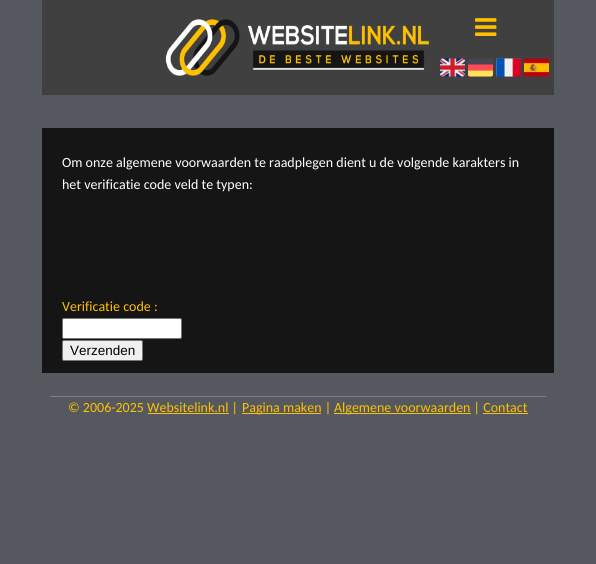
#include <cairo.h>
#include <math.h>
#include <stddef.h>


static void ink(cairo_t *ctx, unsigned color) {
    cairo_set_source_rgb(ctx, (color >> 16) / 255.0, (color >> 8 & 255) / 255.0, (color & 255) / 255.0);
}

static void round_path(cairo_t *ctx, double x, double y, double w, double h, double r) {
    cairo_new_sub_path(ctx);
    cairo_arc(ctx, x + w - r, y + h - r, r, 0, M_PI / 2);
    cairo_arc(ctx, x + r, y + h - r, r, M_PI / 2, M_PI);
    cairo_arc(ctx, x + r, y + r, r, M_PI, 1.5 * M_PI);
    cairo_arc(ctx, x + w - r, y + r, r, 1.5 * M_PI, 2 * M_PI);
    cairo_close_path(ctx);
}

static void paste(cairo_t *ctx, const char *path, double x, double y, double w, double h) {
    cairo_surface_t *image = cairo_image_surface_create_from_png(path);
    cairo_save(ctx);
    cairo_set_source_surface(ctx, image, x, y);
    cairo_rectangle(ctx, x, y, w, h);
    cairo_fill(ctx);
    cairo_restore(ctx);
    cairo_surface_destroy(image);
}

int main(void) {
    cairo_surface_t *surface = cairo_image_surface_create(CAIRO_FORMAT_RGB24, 596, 564);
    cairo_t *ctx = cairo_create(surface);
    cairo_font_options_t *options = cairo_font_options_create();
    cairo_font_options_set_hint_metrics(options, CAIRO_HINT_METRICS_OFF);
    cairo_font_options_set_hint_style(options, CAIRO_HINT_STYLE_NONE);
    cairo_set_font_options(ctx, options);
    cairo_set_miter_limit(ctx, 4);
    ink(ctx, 0x55585F);
    cairo_paint(ctx);
    ink(ctx, 0x404040);
    cairo_rectangle(ctx, 42, 0, 512, 95);
    cairo_fill(ctx);
    paste(ctx, "media/1.png", 165, 19, 265, 57);
    paste(ctx, "media/2.png", 475, 18, 22, 18);
    paste(ctx, "media/3.png", 440, 58, 25, 19);
    paste(ctx, "media/4.png", 468, 58, 25, 19);
    paste(ctx, "media/5.png", 496, 58, 25, 19);
    paste(ctx, "media/6.png", 524, 58, 25, 19);
    ink(ctx, 0x151515);
    cairo_rectangle(ctx, 42, 128, 512, 245);
    cairo_fill(ctx);
    cairo_select_font_face(ctx, "Carlito", CAIRO_FONT_SLANT_NORMAL, CAIRO_FONT_WEIGHT_NORMAL);
    cairo_set_font_size(ctx, 14);
    ink(ctx, 0xFFFFFF);
    cairo_move_to(ctx, 62, 167);
    cairo_show_text(ctx, "Om onze algemene voorwaarden te raadplegen dient u de volgende karakters in");
    cairo_move_to(ctx, 62, 189);
    cairo_show_text(ctx, "het verificatie code veld te typen:");
    ink(ctx, 0xFEC101);
    cairo_move_to(ctx, 62, 311);
    cairo_show_text(ctx, "Verificatie code :");
    ink(ctx, 0xFFFFFF);
    round_path(ctx, 62.5, 318.5, 119, 20, 1.5);
    cairo_fill_preserve(ctx);
    ink(ctx, 0x767676);
    cairo_set_line_width(ctx, 1);
    cairo_stroke(ctx);
    ink(ctx, 0xEFEFEF);
    round_path(ctx, 62.5, 340.5, 80, 20, 1.5);
    cairo_fill_preserve(ctx);
    ink(ctx, 0x767676);
    cairo_stroke(ctx);
    cairo_select_font_face(ctx, "Liberation Sans", CAIRO_FONT_SLANT_NORMAL, CAIRO_FONT_WEIGHT_NORMAL);
    cairo_set_font_size(ctx, 13.5);
    ink(ctx, 0x000000);
    cairo_move_to(ctx, 70, 355);
    cairo_show_text(ctx, "Verzenden");
    ink(ctx, 0x808080);
    cairo_rectangle(ctx, 50, 396, 496, 1);
    cairo_fill(ctx);
    cairo_select_font_face(ctx, "Carlito", CAIRO_FONT_SLANT_NORMAL, CAIRO_FONT_WEIGHT_NORMAL);
    cairo_set_font_size(ctx, 14);
    ink(ctx, 0xFEC101);
    cairo_move_to(ctx, 68, 412);
    cairo_show_text(ctx, "© 2006-2025 Websitelink.nl |");
    cairo_rectangle(ctx, 242, 413, 79, 1);
    cairo_fill(ctx);
    cairo_move_to(ctx, 242, 412);
    cairo_show_text(ctx, "Pagina maken |");
    cairo_rectangle(ctx, 334, 413, 137, 1);
    cairo_fill(ctx);
    cairo_move_to(ctx, 334, 412);
    cairo_show_text(ctx, "Algemene voorwaarden | Contact");
    cairo_rectangle(ctx, 148, 413, 81, 1);
    cairo_fill(ctx);
    cairo_rectangle(ctx, 483, 413, 45, 1);
    cairo_fill(ctx);
    cairo_surface_write_to_png(surface, "image.png");
    cairo_font_options_destroy(options);
    cairo_destroy(ctx);
    cairo_surface_destroy(surface);
    return 0;
}
